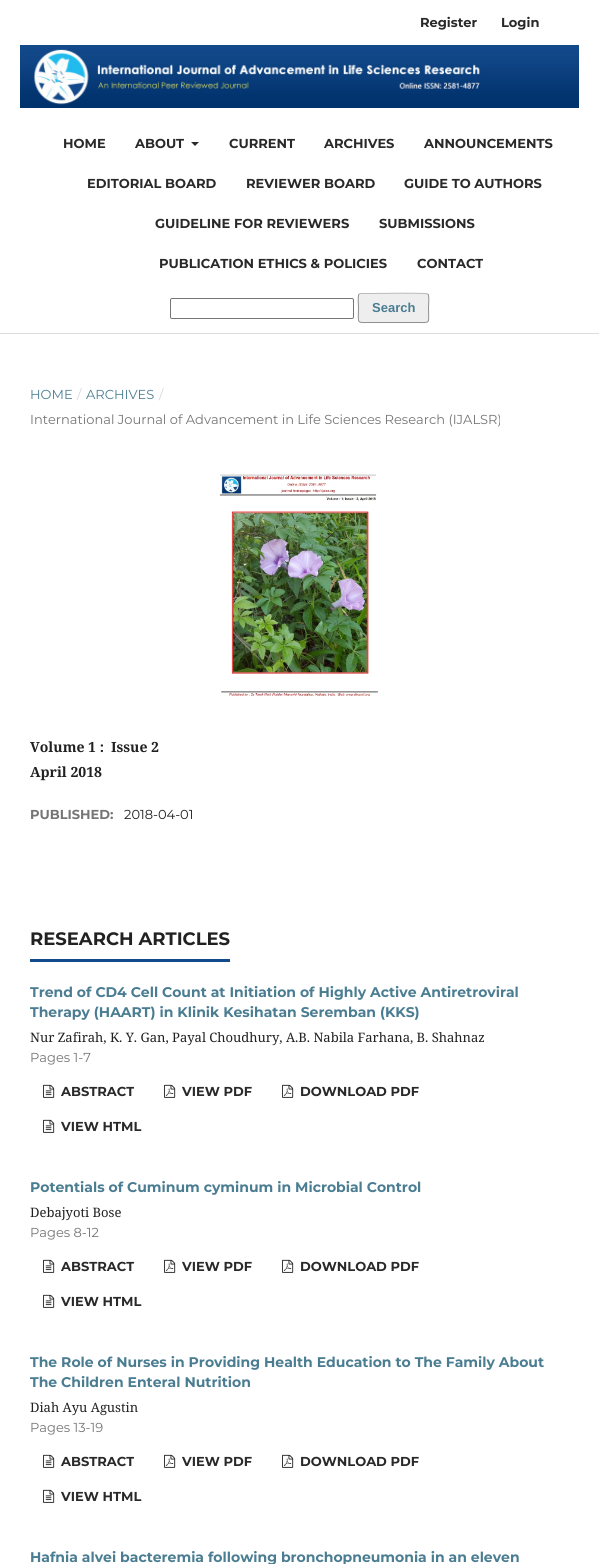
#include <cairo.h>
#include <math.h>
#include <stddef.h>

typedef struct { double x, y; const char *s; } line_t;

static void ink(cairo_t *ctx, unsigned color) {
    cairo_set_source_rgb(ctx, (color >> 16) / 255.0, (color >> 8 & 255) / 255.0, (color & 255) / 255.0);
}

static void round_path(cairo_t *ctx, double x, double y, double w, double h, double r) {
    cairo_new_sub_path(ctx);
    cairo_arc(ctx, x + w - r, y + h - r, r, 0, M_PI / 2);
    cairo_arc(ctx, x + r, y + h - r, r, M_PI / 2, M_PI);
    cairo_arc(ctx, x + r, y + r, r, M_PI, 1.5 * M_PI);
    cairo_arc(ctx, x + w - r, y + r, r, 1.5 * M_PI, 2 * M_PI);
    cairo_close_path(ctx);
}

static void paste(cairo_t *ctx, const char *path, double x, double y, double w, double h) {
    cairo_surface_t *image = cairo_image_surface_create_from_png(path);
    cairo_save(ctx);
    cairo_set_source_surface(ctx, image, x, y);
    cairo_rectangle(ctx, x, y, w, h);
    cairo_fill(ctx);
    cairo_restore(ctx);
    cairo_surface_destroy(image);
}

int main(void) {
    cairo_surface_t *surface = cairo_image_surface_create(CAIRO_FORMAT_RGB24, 599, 1564);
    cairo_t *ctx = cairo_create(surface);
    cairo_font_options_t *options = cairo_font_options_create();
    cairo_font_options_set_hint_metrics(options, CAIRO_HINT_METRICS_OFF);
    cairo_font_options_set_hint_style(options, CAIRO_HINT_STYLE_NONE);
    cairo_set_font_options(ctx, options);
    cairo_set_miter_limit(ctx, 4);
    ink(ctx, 0xFFFFFF);
    cairo_paint(ctx);
    ink(ctx, 0xDDDDDD);
    cairo_rectangle(ctx, 0, 333, 599, 1);
    cairo_fill(ctx);
    cairo_select_font_face(ctx, "Montserrat", CAIRO_FONT_SLANT_NORMAL, CAIRO_FONT_WEIGHT_BOLD);
    cairo_set_font_size(ctx, 13);
    ink(ctx, 0x292929);
    cairo_move_to(ctx, 420, 27);
    cairo_show_text(ctx, "Register");
    cairo_move_to(ctx, 501, 27);
    cairo_show_text(ctx, "Login");
    paste(ctx, "media/1.png", 20, 45, 559, 63);
    cairo_move_to(ctx, 63, 148);
    cairo_show_text(ctx, "HOME");
    cairo_move_to(ctx, 135, 148);
    cairo_show_text(ctx, "ABOUT");
    cairo_new_path(ctx);
    cairo_move_to(ctx, 191, 142);
    cairo_line_to(ctx, 199, 142);
    cairo_line_to(ctx, 195, 146);
    cairo_close_path(ctx);
    cairo_fill(ctx);
    {
        static const line_t items[] = {
            {229, 148, "CURRENT"},
            {324, 148, "ARCHIVES"},
            {424, 148, "ANNOUNCEMENTS"},
            {87, 188, "EDITORIAL BOARD"},
            {246, 188, "REVIEWER BOARD"},
            {404, 188, "GUIDE TO AUTHORS"},
            {155, 228, "GUIDELINE FOR REVIEWERS"},
            {379, 228, "SUBMISSIONS"},
            {159, 268, "PUBLICATION ETHICS & POLICIES"},
            {417, 268, "CONTACT"},
        };
        for (size_t i = 0; i < sizeof items / sizeof *items; i++) {
            cairo_move_to(ctx, items[i].x, items[i].y);
            cairo_show_text(ctx, items[i].s);
        }
    }
    round_path(ctx, 170.5, 298.5, 183, 20, 1.5);
    ink(ctx, 0x767676);
    cairo_set_line_width(ctx, 1);
    cairo_stroke(ctx);
    ink(ctx, 0xEEEEEE);
    round_path(ctx, 358, 293, 71, 30, 3);
    cairo_fill(ctx);
    cairo_new_path(ctx);
    cairo_move_to(ctx, 359, 294);
    cairo_line_to(ctx, 361, 293.5);
    cairo_line_to(ctx, 372, 293.5);
    cairo_curve_to(ctx, 378, 293.5, 425.5, 292.5, 427.5, 294);
    cairo_line_to(ctx, 428, 294);
    ink(ctx, 0xBBBBBB);
    cairo_stroke(ctx);
    cairo_new_path(ctx);
    cairo_move_to(ctx, 428, 294);
    cairo_curve_to(ctx, 429.5, 296, 428.5, 305.5, 428.5, 308);
    cairo_curve_to(ctx, 428.5, 324.5, 431.5, 322.5, 415, 322.5);
    cairo_line_to(ctx, 372, 322.5);
    cairo_curve_to(ctx, 355.5, 322.5, 358.5, 324.5, 358.5, 308);
    cairo_curve_to(ctx, 358.5, 305.5, 357.5, 296, 359, 294);
    cairo_set_source_rgba(ctx, 0, 0, 0, 0.4);
    cairo_stroke(ctx);
    cairo_select_font_face(ctx, "Liberation Sans", CAIRO_FONT_SLANT_NORMAL, CAIRO_FONT_WEIGHT_BOLD);
    ink(ctx, 0x4B7D92);
    cairo_move_to(ctx, 372, 312);
    cairo_show_text(ctx, "Search");
    cairo_select_font_face(ctx, "Montserrat", CAIRO_FONT_SLANT_NORMAL, CAIRO_FONT_WEIGHT_NORMAL);
    cairo_move_to(ctx, 30, 399);
    cairo_show_text(ctx, "HOME");
    ink(ctx, 0xD6D6D6);
    cairo_move_to(ctx, 77, 399);
    cairo_show_text(ctx, "/");
    ink(ctx, 0x4B7D92);
    cairo_move_to(ctx, 86, 399);
    cairo_show_text(ctx, "ARCHIVES");
    ink(ctx, 0xD6D6D6);
    cairo_move_to(ctx, 159, 399);
    cairo_show_text(ctx, "/");
    ink(ctx, 0x757575);
    cairo_move_to(ctx, 30, 424);
    cairo_show_text(ctx, "International Journal of Advancement in Life Sciences Research (IJALSR)");
    paste(ctx, "media/2.png", 219, 474, 159, 223);
    cairo_select_font_face(ctx, "Noto Serif", CAIRO_FONT_SLANT_NORMAL, CAIRO_FONT_WEIGHT_BOLD);
    cairo_set_font_size(ctx, 14);
    ink(ctx, 0x212121);
    {
        static const line_t items[] = {
            {30, 752, "Volume 1 :"},
            {111, 752, "Issue 2"},
            {30, 777, "April 2018"},
        };
        for (size_t i = 0; i < sizeof items / sizeof *items; i++) {
            cairo_move_to(ctx, items[i].x, items[i].y);
            cairo_show_text(ctx, items[i].s);
        }
    }
    cairo_select_font_face(ctx, "Montserrat", CAIRO_FONT_SLANT_NORMAL, CAIRO_FONT_WEIGHT_BOLD);
    cairo_set_font_size(ctx, 13);
    ink(ctx, 0x757575);
    cairo_move_to(ctx, 30, 819);
    cairo_show_text(ctx, "PUBLISHED:");
    cairo_select_font_face(ctx, "Montserrat", CAIRO_FONT_SLANT_NORMAL, CAIRO_FONT_WEIGHT_NORMAL);
    ink(ctx, 0x212121);
    cairo_move_to(ctx, 124, 819);
    cairo_show_text(ctx, "2018-04-01");
    ink(ctx, 0x134A8B);
    cairo_rectangle(ctx, 30, 959, 200, 3);
    cairo_fill(ctx);
    cairo_select_font_face(ctx, "Montserrat", CAIRO_FONT_SLANT_NORMAL, CAIRO_FONT_WEIGHT_BOLD);
    cairo_set_font_size(ctx, 18);
    ink(ctx, 0x212121);
    cairo_move_to(ctx, 30, 945);
    cairo_show_text(ctx, "RESEARCH ARTICLES");
    cairo_set_font_size(ctx, 14);
    ink(ctx, 0x4B7D92);
    cairo_move_to(ctx, 30, 997);
    cairo_show_text(ctx, "Trend of CD4 Cell Count at Initiation of Highly Active Antiretroviral");
    cairo_move_to(ctx, 30, 1017);
    cairo_show_text(ctx, "Therapy (HAART) in Klinik Kesihatan Seremban (KKS)");
    cairo_select_font_face(ctx, "Noto Serif", CAIRO_FONT_SLANT_NORMAL, CAIRO_FONT_WEIGHT_NORMAL);
    cairo_set_font_size(ctx, 13);
    ink(ctx, 0x212121);
    cairo_move_to(ctx, 30, 1042);
    cairo_show_text(ctx, "Nur Zafirah, K. Y. Gan, Payal Choudhury, A.B. Nabila Farhana, B. Shahnaz");
    cairo_select_font_face(ctx, "Montserrat", CAIRO_FONT_SLANT_NORMAL, CAIRO_FONT_WEIGHT_NORMAL);
    ink(ctx, 0x757575);
    cairo_move_to(ctx, 30, 1062);
    cairo_show_text(ctx, "Pages 1-7");
    paste(ctx, "media/3.png", 43, 1084, 12, 14);
    cairo_select_font_face(ctx, "Montserrat", CAIRO_FONT_SLANT_NORMAL, CAIRO_FONT_WEIGHT_BOLD);
    ink(ctx, 0x292929);
    cairo_move_to(ctx, 61, 1096);
    cairo_show_text(ctx, "ABSTRACT");
    paste(ctx, "media/4.png", 164, 1084, 12, 14);
    cairo_move_to(ctx, 182, 1096);
    cairo_show_text(ctx, "VIEW PDF");
    paste(ctx, "media/4.png", 282, 1084, 12, 14);
    cairo_move_to(ctx, 300, 1096);
    cairo_show_text(ctx, "DOWNLOAD PDF");
    paste(ctx, "media/3.png", 43, 1119, 12, 14);
    cairo_move_to(ctx, 61, 1131);
    cairo_show_text(ctx, "VIEW HTML");
    cairo_set_font_size(ctx, 14);
    ink(ctx, 0x4B7D92);
    cairo_move_to(ctx, 30, 1192);
    cairo_show_text(ctx, "Potentials of Cuminum cyminum in Microbial Control");
    cairo_select_font_face(ctx, "Noto Serif", CAIRO_FONT_SLANT_NORMAL, CAIRO_FONT_WEIGHT_NORMAL);
    cairo_set_font_size(ctx, 13);
    ink(ctx, 0x212121);
    cairo_move_to(ctx, 30, 1217);
    cairo_show_text(ctx, "Debajyoti Bose");
    cairo_select_font_face(ctx, "Montserrat", CAIRO_FONT_SLANT_NORMAL, CAIRO_FONT_WEIGHT_NORMAL);
    ink(ctx, 0x757575);
    cairo_move_to(ctx, 30, 1237);
    cairo_show_text(ctx, "Pages 8-12");
    paste(ctx, "media/3.png", 43, 1259, 12, 14);
    cairo_select_font_face(ctx, "Montserrat", CAIRO_FONT_SLANT_NORMAL, CAIRO_FONT_WEIGHT_BOLD);
    ink(ctx, 0x292929);
    cairo_move_to(ctx, 61, 1271);
    cairo_show_text(ctx, "ABSTRACT");
    paste(ctx, "media/4.png", 164, 1259, 12, 14);
    cairo_move_to(ctx, 182, 1271);
    cairo_show_text(ctx, "VIEW PDF");
    paste(ctx, "media/4.png", 282, 1259, 12, 14);
    cairo_move_to(ctx, 300, 1271);
    cairo_show_text(ctx, "DOWNLOAD PDF");
    paste(ctx, "media/3.png", 43, 1294, 12, 14);
    cairo_move_to(ctx, 61, 1306);
    cairo_show_text(ctx, "VIEW HTML");
    cairo_set_font_size(ctx, 14);
    ink(ctx, 0x4B7D92);
    cairo_move_to(ctx, 30, 1367);
    cairo_show_text(ctx, "The Role of Nurses in Providing Health Education to The Family About");
    cairo_move_to(ctx, 30, 1387);
    cairo_show_text(ctx, "The Children Enteral Nutrition");
    cairo_select_font_face(ctx, "Noto Serif", CAIRO_FONT_SLANT_NORMAL, CAIRO_FONT_WEIGHT_NORMAL);
    cairo_set_font_size(ctx, 13);
    ink(ctx, 0x212121);
    cairo_move_to(ctx, 30, 1412);
    cairo_show_text(ctx, "Diah Ayu Agustin");
    cairo_select_font_face(ctx, "Montserrat", CAIRO_FONT_SLANT_NORMAL, CAIRO_FONT_WEIGHT_NORMAL);
    ink(ctx, 0x757575);
    cairo_move_to(ctx, 30, 1432);
    cairo_show_text(ctx, "Pages 13-19");
    paste(ctx, "media/3.png", 43, 1454, 12, 14);
    cairo_select_font_face(ctx, "Montserrat", CAIRO_FONT_SLANT_NORMAL, CAIRO_FONT_WEIGHT_BOLD);
    ink(ctx, 0x292929);
    cairo_move_to(ctx, 61, 1466);
    cairo_show_text(ctx, "ABSTRACT");
    paste(ctx, "media/4.png", 164, 1454, 12, 14);
    cairo_move_to(ctx, 182, 1466);
    cairo_show_text(ctx, "VIEW PDF");
    paste(ctx, "media/4.png", 282, 1454, 12, 14);
    cairo_move_to(ctx, 300, 1466);
    cairo_show_text(ctx, "DOWNLOAD PDF");
    paste(ctx, "media/3.png", 43, 1489, 12, 14);
    cairo_move_to(ctx, 61, 1501);
    cairo_show_text(ctx, "VIEW HTML");
    cairo_set_font_size(ctx, 14);
    ink(ctx, 0x4B7D92);
    cairo_move_to(ctx, 30, 1562);
    cairo_show_text(ctx, "Hafnia alvei bacteremia following bronchopneumonia in an eleven");
    cairo_surface_write_to_png(surface, "image.png");
    cairo_font_options_destroy(options);
    cairo_destroy(ctx);
    cairo_surface_destroy(surface);
    return 0;
}
